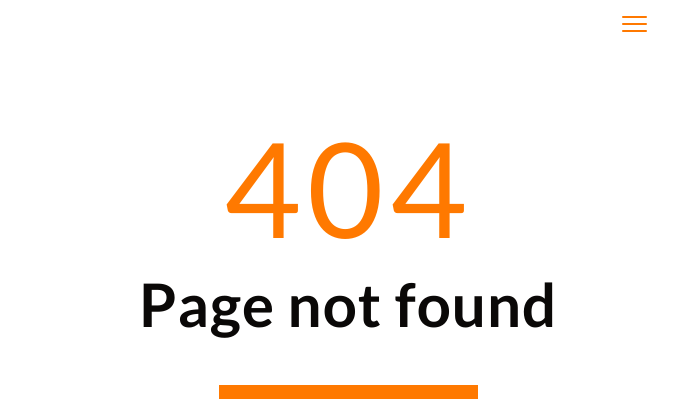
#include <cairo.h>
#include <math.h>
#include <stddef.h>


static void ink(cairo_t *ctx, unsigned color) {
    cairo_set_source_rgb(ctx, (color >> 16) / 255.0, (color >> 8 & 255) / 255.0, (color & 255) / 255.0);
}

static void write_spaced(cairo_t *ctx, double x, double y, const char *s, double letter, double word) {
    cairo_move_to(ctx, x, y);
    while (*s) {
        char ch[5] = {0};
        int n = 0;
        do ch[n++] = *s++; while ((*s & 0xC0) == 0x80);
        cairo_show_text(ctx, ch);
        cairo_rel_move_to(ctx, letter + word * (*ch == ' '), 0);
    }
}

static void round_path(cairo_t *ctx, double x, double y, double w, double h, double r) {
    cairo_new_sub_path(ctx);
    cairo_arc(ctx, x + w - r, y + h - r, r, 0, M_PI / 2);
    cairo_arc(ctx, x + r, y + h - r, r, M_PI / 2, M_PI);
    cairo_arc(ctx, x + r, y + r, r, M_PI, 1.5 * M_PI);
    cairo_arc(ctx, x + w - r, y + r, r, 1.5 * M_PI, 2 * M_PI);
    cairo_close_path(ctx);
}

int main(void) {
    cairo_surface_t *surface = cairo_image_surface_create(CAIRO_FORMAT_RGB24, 697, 399);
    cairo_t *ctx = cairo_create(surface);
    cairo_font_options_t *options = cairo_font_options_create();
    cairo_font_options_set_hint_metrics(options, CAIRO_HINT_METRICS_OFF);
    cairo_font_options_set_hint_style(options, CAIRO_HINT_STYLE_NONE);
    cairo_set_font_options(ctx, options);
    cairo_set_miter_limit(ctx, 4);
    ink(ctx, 0xFFFFFF);
    cairo_paint(ctx);
    ink(ctx, 0xFF7900);
    round_path(ctx, 622, 16, 25, 2, 1);
    cairo_fill(ctx);
    round_path(ctx, 622, 23, 25, 2, 1);
    cairo_fill(ctx);
    round_path(ctx, 622, 30, 25, 2, 1);
    cairo_fill(ctx);
    cairo_select_font_face(ctx, "Lato", CAIRO_FONT_SLANT_NORMAL, CAIRO_FONT_WEIGHT_NORMAL);
    cairo_set_font_size(ctx, 132);
    write_spaced(ctx, 224, 238, "404", 6.5, 0);
    cairo_select_font_face(ctx, "Lato", CAIRO_FONT_SLANT_NORMAL, CAIRO_FONT_WEIGHT_BOLD);
    cairo_set_font_size(ctx, 60);
    ink(ctx, 0x0A0807);
    write_spaced(ctx, 139, 327, "Page not found", 1, 0);
    ink(ctx, 0xFF7900);
    cairo_rectangle(ctx, 219, 385, 259, 14);
    cairo_fill(ctx);
    cairo_surface_write_to_png(surface, "image.png");
    cairo_font_options_destroy(options);
    cairo_destroy(ctx);
    cairo_surface_destroy(surface);
    return 0;
}
